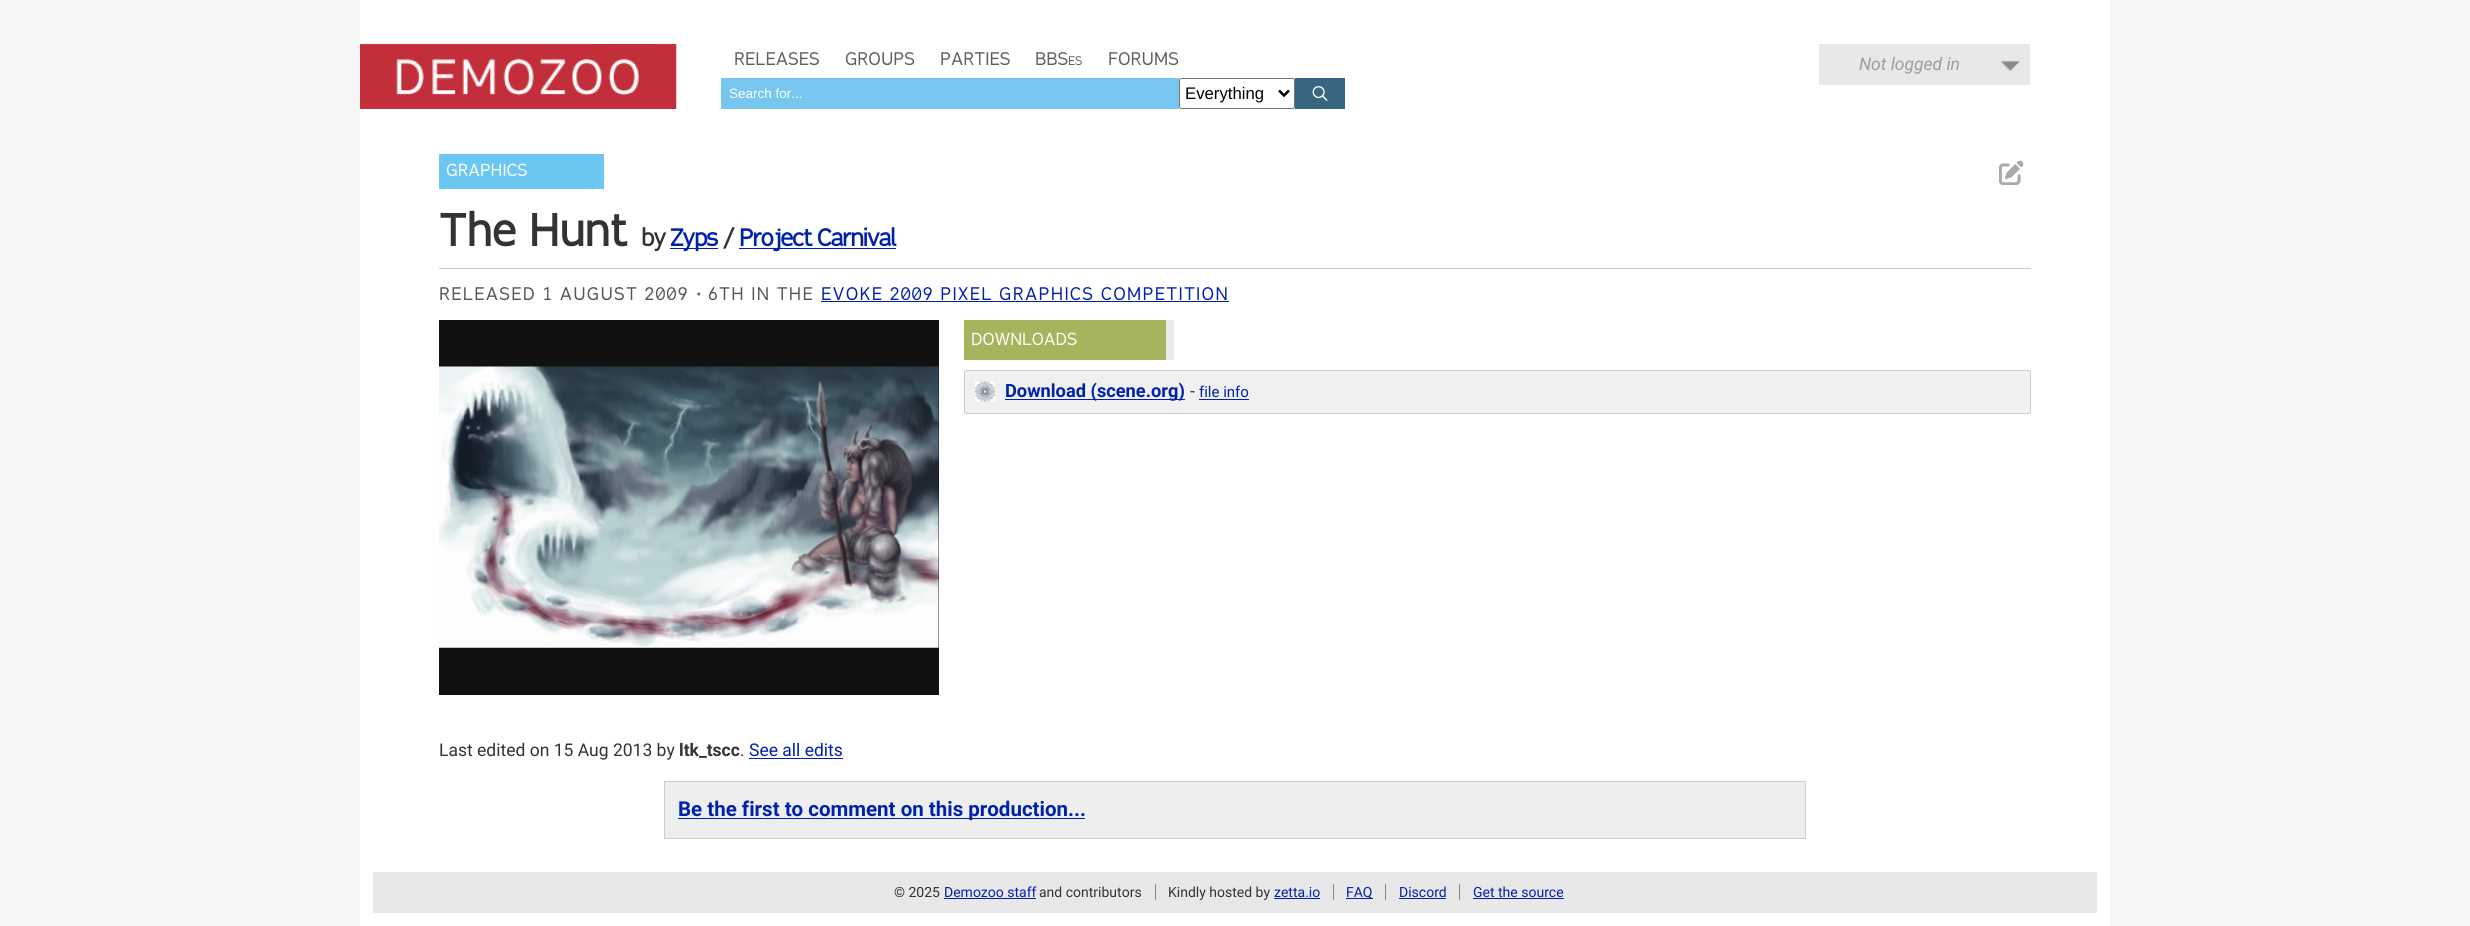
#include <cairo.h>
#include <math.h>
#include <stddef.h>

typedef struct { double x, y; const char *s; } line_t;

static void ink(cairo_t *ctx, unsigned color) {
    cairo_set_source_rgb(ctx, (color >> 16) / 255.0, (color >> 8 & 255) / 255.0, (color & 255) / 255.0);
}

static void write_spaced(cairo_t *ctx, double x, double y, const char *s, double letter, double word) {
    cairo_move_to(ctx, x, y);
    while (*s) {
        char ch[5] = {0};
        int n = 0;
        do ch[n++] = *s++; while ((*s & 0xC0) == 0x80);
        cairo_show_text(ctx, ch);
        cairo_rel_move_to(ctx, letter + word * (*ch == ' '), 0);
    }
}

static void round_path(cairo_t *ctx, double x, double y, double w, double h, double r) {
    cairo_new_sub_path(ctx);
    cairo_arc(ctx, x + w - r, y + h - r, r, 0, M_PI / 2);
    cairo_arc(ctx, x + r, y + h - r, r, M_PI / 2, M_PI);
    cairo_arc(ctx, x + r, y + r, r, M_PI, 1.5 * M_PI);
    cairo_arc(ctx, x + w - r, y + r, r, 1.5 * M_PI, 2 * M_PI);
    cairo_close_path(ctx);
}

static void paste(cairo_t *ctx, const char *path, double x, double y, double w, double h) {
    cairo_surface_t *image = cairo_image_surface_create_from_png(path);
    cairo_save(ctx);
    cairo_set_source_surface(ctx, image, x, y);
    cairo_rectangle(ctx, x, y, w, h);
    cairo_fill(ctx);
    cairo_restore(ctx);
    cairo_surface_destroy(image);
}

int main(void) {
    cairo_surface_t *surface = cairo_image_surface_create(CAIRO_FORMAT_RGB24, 2470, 926);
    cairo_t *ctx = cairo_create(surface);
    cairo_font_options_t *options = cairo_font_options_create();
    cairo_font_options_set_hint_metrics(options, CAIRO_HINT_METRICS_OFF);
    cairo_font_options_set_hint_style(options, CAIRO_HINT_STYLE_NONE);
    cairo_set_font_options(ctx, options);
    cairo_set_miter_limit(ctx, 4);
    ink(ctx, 0xF5F5F5);
    cairo_paint(ctx);
    ink(ctx, 0xFFFFFF);
    cairo_rectangle(ctx, 360, 0, 1750, 859);
    cairo_fill(ctx);
    paste(ctx, "media/1.png", 360, 44, 317, 65);
    cairo_select_font_face(ctx, "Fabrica", CAIRO_FONT_SLANT_NORMAL, CAIRO_FONT_WEIGHT_NORMAL);
    cairo_set_font_size(ctx, 17.5);
    ink(ctx, 0x5E5F5F);
    {
        static const line_t items[] = {
            {734, 65, "RELEASES"},
            {845, 65, "GROUPS"},
            {940, 65, "PARTIES"},
            {1035, 65, "BBS"},
        };
        for (size_t i = 0; i < sizeof items / sizeof *items; i++) {
            cairo_move_to(ctx, items[i].x, items[i].y);
            cairo_show_text(ctx, items[i].s);
        }
    }
    cairo_set_font_size(ctx, 12);
    cairo_move_to(ctx, 1068, 65);
    cairo_show_text(ctx, "ES");
    cairo_set_font_size(ctx, 17.5);
    cairo_move_to(ctx, 1108, 65);
    cairo_show_text(ctx, "FORUMS");
    ink(ctx, 0x77C6EF);
    cairo_rectangle(ctx, 721, 78, 458, 31);
    cairo_fill(ctx);
    cairo_select_font_face(ctx, "Liberation Sans", CAIRO_FONT_SLANT_NORMAL, CAIRO_FONT_WEIGHT_NORMAL);
    cairo_set_font_size(ctx, 13.5);
    ink(ctx, 0xFFFFFF);
    cairo_move_to(ctx, 729, 98);
    cairo_show_text(ctx, "Search for...");
    round_path(ctx, 1179.5, 78.5, 115, 30, 2);
    ink(ctx, 0x767676);
    cairo_set_line_width(ctx, 1);
    cairo_stroke(ctx);
    cairo_new_path(ctx);
    cairo_move_to(ctx, 1279, 90.5);
    cairo_line_to(ctx, 1284, 95.5);
    cairo_line_to(ctx, 1289, 90.5);
    ink(ctx, 0x000000);
    cairo_set_line_width(ctx, 2.5);
    cairo_stroke(ctx);
    cairo_set_font_size(ctx, 16.75);
    cairo_move_to(ctx, 1185, 99);
    cairo_show_text(ctx, "Everything");
    ink(ctx, 0x386580);
    cairo_rectangle(ctx, 1295, 78, 50, 31);
    cairo_fill(ctx);
    paste(ctx, "media/2.png", 1312, 86, 16, 15);
    ink(ctx, 0xE8E8E8);
    cairo_rectangle(ctx, 1819, 44, 211, 41);
    cairo_fill(ctx);
    paste(ctx, "media/3.png", 2001, 60, 19, 11);
    cairo_select_font_face(ctx, "Roboto", CAIRO_FONT_SLANT_ITALIC, CAIRO_FONT_WEIGHT_NORMAL);
    cairo_set_font_size(ctx, 17.5);
    ink(ctx, 0x9D9D9D);
    cairo_move_to(ctx, 1859, 70);
    cairo_show_text(ctx, "Not logged in");
    ink(ctx, 0x6BC7F1);
    cairo_rectangle(ctx, 439, 154, 165, 35);
    cairo_fill(ctx);
    cairo_select_font_face(ctx, "Fabrica", CAIRO_FONT_SLANT_NORMAL, CAIRO_FONT_WEIGHT_NORMAL);
    cairo_set_font_size(ctx, 16.75);
    ink(ctx, 0xFFFFFF);
    cairo_move_to(ctx, 446, 176);
    cairo_show_text(ctx, "GRAPHICS");
    paste(ctx, "media/4.png", 1999, 160, 25, 25);
    cairo_select_font_face(ctx, "Fabrica", CAIRO_FONT_SLANT_NORMAL, CAIRO_FONT_WEIGHT_BOLD);
    cairo_set_font_size(ctx, 43.5);
    ink(ctx, 0x333333);
    cairo_move_to(ctx, 439, 246);
    cairo_show_text(ctx, "The Hunt");
    cairo_set_font_size(ctx, 23.25);
    write_spaced(ctx, 641, 246, "by", -1.25, 0);
    ink(ctx, 0x0022AA);
    cairo_rectangle(ctx, 670, 248, 48, 1);
    cairo_fill(ctx);
    write_spaced(ctx, 670, 246, "Zyps", -1.25, 0);
    ink(ctx, 0x333333);
    write_spaced(ctx, 723, 246, "/", -1.25, 0);
    ink(ctx, 0x0022AA);
    cairo_rectangle(ctx, 739, 248, 157, 1);
    cairo_fill(ctx);
    write_spaced(ctx, 739, 246, "Project Carnival", -1.25, 0);
    ink(ctx, 0xCCCCCC);
    cairo_rectangle(ctx, 439, 268, 1592, 1);
    cairo_fill(ctx);
    cairo_select_font_face(ctx, "Fabrica", CAIRO_FONT_SLANT_NORMAL, CAIRO_FONT_WEIGHT_NORMAL);
    cairo_set_font_size(ctx, 17.5);
    ink(ctx, 0x555555);
    write_spaced(ctx, 439, 300, "RELEASED 1 AUGUST 2009", 1.25, 0);
    paste(ctx, "media/5.png", 697, 292, 4, 4);
    write_spaced(ctx, 708, 300, "6TH IN THE", 1.25, 0);
    ink(ctx, 0x0022AA);
    write_spaced(ctx, 821, 300, "EVOKE 2009 PIXEL GRAPHICS COMPETITION", 1.25, 0);
    cairo_rectangle(ctx, 821, 301, 408, 1);
    cairo_fill(ctx);
    ink(ctx, 0x111111);
    cairo_rectangle(ctx, 439, 320, 500, 375);
    cairo_fill(ctx);
    paste(ctx, "media/6.png", 439, 366, 500, 282);
    ink(ctx, 0xA5B45D);
    cairo_rectangle(ctx, 964, 320, 202, 40);
    cairo_fill(ctx);
    ink(ctx, 0xEAEAEA);
    cairo_rectangle(ctx, 1166, 320, 8, 40);
    cairo_fill(ctx);
    cairo_set_font_size(ctx, 16.75);
    ink(ctx, 0xFFFFFF);
    cairo_move_to(ctx, 971, 345);
    cairo_show_text(ctx, "DOWNLOADS");
    ink(ctx, 0xF0F0F0);
    round_path(ctx, 964, 370, 1067, 44, 2.5);
    cairo_fill(ctx);
    paste(ctx, "media/7.png", 975, 381, 20, 21);
    round_path(ctx, 964.5, 370.5, 1066, 43, 2);
    ink(ctx, 0xCCCCCC);
    cairo_set_line_width(ctx, 1);
    cairo_stroke(ctx);
    ink(ctx, 0x0022AA);
    cairo_rectangle(ctx, 1005, 399, 180, 1);
    cairo_fill(ctx);
    cairo_select_font_face(ctx, "Roboto", CAIRO_FONT_SLANT_NORMAL, CAIRO_FONT_WEIGHT_BOLD);
    cairo_set_font_size(ctx, 18.25);
    cairo_move_to(ctx, 1005, 397);
    cairo_show_text(ctx, "Download (scene.org)");
    cairo_select_font_face(ctx, "Roboto", CAIRO_FONT_SLANT_NORMAL, CAIRO_FONT_WEIGHT_NORMAL);
    cairo_set_font_size(ctx, 17.5);
    ink(ctx, 0x333333);
    cairo_move_to(ctx, 1190, 397);
    cairo_show_text(ctx, "-");
    cairo_set_font_size(ctx, 15);
    ink(ctx, 0x0022AA);
    cairo_move_to(ctx, 1199, 397);
    cairo_show_text(ctx, "file info");
    cairo_rectangle(ctx, 1199, 399, 50, 1);
    cairo_fill(ctx);
    cairo_set_font_size(ctx, 17.5);
    ink(ctx, 0x333333);
    cairo_move_to(ctx, 439, 756);
    cairo_show_text(ctx, "Last edited on 15 Aug 2013 by");
    cairo_select_font_face(ctx, "Roboto", CAIRO_FONT_SLANT_NORMAL, CAIRO_FONT_WEIGHT_BOLD);
    cairo_move_to(ctx, 679, 756);
    cairo_show_text(ctx, "ltk_tscc");
    cairo_select_font_face(ctx, "Roboto", CAIRO_FONT_SLANT_NORMAL, CAIRO_FONT_WEIGHT_NORMAL);
    cairo_move_to(ctx, 740, 756);
    cairo_show_text(ctx, ".");
    ink(ctx, 0x0022AA);
    cairo_move_to(ctx, 749, 756);
    cairo_show_text(ctx, "See all edits");
    cairo_rectangle(ctx, 749, 758, 94, 1);
    cairo_fill(ctx);
    ink(ctx, 0xEEEEEE);
    cairo_rectangle(ctx, 664.5, 781.5, 1141, 57);
    cairo_fill_preserve(ctx);
    ink(ctx, 0xCCCCCC);
    cairo_stroke(ctx);
    ink(ctx, 0x0022AA);
    cairo_rectangle(ctx, 678, 818, 407, 1);
    cairo_fill(ctx);
    cairo_select_font_face(ctx, "Roboto", CAIRO_FONT_SLANT_NORMAL, CAIRO_FONT_WEIGHT_BOLD);
    cairo_set_font_size(ctx, 20.5);
    cairo_move_to(ctx, 678, 816);
    cairo_show_text(ctx, "Be the first to comment on this production...");
    ink(ctx, 0xE8E8E8);
    cairo_rectangle(ctx, 366.5, 865.5, 1737, 54);
    cairo_fill_preserve(ctx);
    ink(ctx, 0xFFFFFF);
    cairo_set_line_width(ctx, 13);
    cairo_stroke(ctx);
    cairo_select_font_face(ctx, "Roboto", CAIRO_FONT_SLANT_NORMAL, CAIRO_FONT_WEIGHT_NORMAL);
    cairo_set_font_size(ctx, 14);
    ink(ctx, 0x333333);
    cairo_move_to(ctx, 894, 897);
    cairo_show_text(ctx, "© 2025");
    ink(ctx, 0x0022AA);
    cairo_move_to(ctx, 944, 897);
    cairo_show_text(ctx, "Demozoo staff");
    cairo_rectangle(ctx, 944, 898, 92, 1);
    cairo_fill(ctx);
    ink(ctx, 0x333333);
    cairo_move_to(ctx, 1039, 897);
    cairo_show_text(ctx, "and contributors");
    cairo_move_to(ctx, 1168, 897);
    cairo_show_text(ctx, "Kindly hosted by");
    ink(ctx, 0x888888);
    cairo_rectangle(ctx, 1155, 884, 1, 16);
    cairo_fill(ctx);
    ink(ctx, 0x0022AA);
    cairo_move_to(ctx, 1274, 897);
    cairo_show_text(ctx, "zetta.io");
    cairo_rectangle(ctx, 1274, 898, 46, 1);
    cairo_fill(ctx);
    cairo_rectangle(ctx, 1346, 898, 27, 1);
    cairo_fill(ctx);
    cairo_move_to(ctx, 1346, 897);
    cairo_show_text(ctx, "FAQ");
    ink(ctx, 0x888888);
    cairo_rectangle(ctx, 1333, 884, 1, 16);
    cairo_fill(ctx);
    ink(ctx, 0x0022AA);
    cairo_move_to(ctx, 1399, 897);
    cairo_show_text(ctx, "Discord");
    ink(ctx, 0x888888);
    cairo_rectangle(ctx, 1385, 884, 1, 16);
    cairo_fill(ctx);
    ink(ctx, 0x0022AA);
    cairo_rectangle(ctx, 1399, 898, 47, 1);
    cairo_fill(ctx);
    cairo_move_to(ctx, 1473, 897);
    cairo_show_text(ctx, "Get the source");
    ink(ctx, 0x888888);
    cairo_rectangle(ctx, 1459, 884, 1, 16);
    cairo_fill(ctx);
    ink(ctx, 0x0022AA);
    cairo_rectangle(ctx, 1473, 898, 91, 1);
    cairo_fill(ctx);
    cairo_surface_write_to_png(surface, "image.png");
    cairo_font_options_destroy(options);
    cairo_destroy(ctx);
    cairo_surface_destroy(surface);
    return 0;
}
